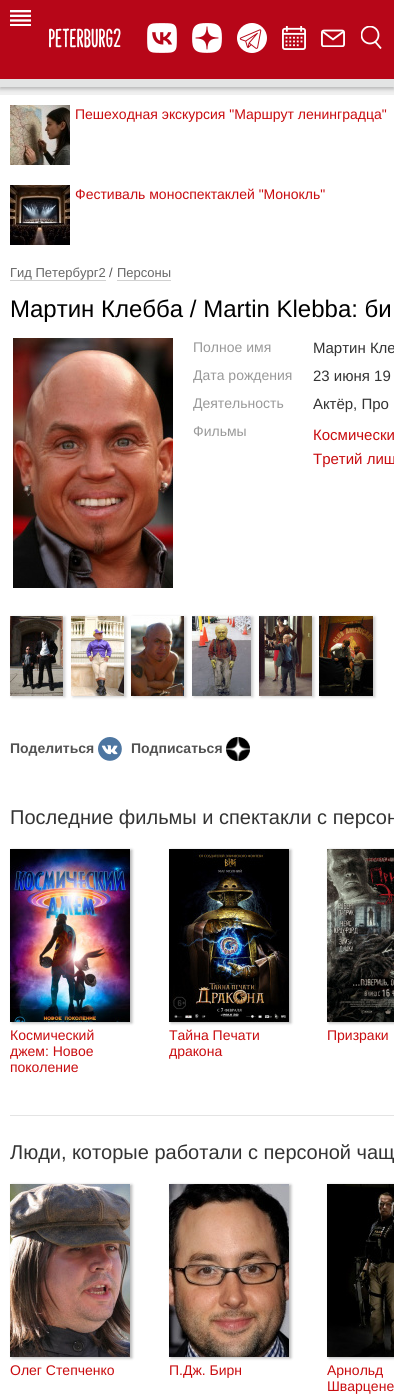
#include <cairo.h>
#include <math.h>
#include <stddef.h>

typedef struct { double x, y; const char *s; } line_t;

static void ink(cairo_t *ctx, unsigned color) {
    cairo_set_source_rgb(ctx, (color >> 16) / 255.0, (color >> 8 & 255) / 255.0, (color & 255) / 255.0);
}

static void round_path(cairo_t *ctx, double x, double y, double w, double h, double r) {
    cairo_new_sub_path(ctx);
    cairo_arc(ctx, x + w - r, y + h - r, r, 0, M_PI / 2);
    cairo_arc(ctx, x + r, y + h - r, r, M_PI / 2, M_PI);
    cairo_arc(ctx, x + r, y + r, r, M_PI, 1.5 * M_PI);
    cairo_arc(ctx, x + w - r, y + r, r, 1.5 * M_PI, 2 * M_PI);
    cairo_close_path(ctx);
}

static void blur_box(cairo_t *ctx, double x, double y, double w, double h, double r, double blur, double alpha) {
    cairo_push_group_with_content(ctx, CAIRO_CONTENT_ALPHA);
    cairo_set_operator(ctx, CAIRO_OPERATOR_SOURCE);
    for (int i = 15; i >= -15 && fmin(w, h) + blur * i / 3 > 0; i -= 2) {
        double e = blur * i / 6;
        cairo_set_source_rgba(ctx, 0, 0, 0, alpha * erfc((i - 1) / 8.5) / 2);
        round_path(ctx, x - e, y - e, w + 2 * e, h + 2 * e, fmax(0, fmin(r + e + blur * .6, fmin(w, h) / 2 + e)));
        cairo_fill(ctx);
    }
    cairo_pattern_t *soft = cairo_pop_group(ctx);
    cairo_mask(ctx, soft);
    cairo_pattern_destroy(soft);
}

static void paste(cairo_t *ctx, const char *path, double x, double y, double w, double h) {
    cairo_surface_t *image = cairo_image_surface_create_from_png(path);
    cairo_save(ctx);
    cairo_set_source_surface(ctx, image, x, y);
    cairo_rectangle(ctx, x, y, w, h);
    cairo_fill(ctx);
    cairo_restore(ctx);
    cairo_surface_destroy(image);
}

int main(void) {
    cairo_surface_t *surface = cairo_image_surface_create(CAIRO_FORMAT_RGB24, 394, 1398);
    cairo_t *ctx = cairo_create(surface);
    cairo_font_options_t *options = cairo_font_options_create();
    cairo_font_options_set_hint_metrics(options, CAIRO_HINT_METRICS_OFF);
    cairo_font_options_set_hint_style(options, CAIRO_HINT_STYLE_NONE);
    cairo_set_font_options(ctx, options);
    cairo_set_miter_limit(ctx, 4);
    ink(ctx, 0xF0F0F0);
    cairo_paint(ctx);
    ink(ctx, 0xFFFFFF);
    cairo_rectangle(ctx, 0, 95, 394, 1303);
    cairo_fill(ctx);
    ink(ctx, 0x000000);
    blur_box(ctx, 0, 81, 394, 8, 0, 2, 0.25);
    ink(ctx, 0xB70618);
    cairo_rectangle(ctx, 0, 0, 394, 79);
    cairo_fill(ctx);
    paste(ctx, "media/1.png", 10, 10, 21, 16);
    paste(ctx, "media/2.png", 49, 28, 72, 20);
    paste(ctx, "media/3.png", 147, 23, 30, 30);
    paste(ctx, "media/4.png", 192, 23, 30, 30);
    paste(ctx, "media/5.png", 237, 23, 30, 30);
    paste(ctx, "media/6.png", 282, 26, 24, 24);
    paste(ctx, "media/7.png", 321, 29, 24, 18);
    cairo_save(ctx);
    cairo_rectangle(ctx, 361, 26, 22, 24);
    cairo_clip(ctx);
    cairo_arc(ctx, 370, 35, 8.5, 0, 2 * M_PI);
    ink(ctx, 0xFFFFFF);
    cairo_set_line_width(ctx, 1.8);
    cairo_stroke(ctx);
    cairo_restore(ctx);
    cairo_new_path(ctx);
    cairo_move_to(ctx, 375, 41.5);
    cairo_line_to(ctx, 381, 48.5);
    ink(ctx, 0xFFFFFF);
    cairo_set_line_width(ctx, 1.8);
    cairo_stroke(ctx);
    ink(ctx, 0xE3E4E4);
    cairo_rectangle(ctx, 0, 79, 394, 8);
    cairo_fill(ctx);
    paste(ctx, "media/8.png", 10, 105, 60, 60);
    cairo_select_font_face(ctx, "Liberation Sans", CAIRO_FONT_SLANT_NORMAL, CAIRO_FONT_WEIGHT_NORMAL);
    cairo_set_font_size(ctx, 14);
    ink(ctx, 0xC90C0F);
    cairo_move_to(ctx, 75, 119);
    cairo_show_text(ctx, "Пешеходная экскурсия \"Маршрут ленинградца\"");
    paste(ctx, "media/9.png", 10, 185, 60, 60);
    cairo_move_to(ctx, 75, 199);
    cairo_show_text(ctx, "Фестиваль моноспектаклей \"Монокль\"");
    cairo_set_font_size(ctx, 13);
    ink(ctx, 0x666666);
    cairo_move_to(ctx, 10, 277);
    cairo_show_text(ctx, "Гид Петербург2");
    ink(ctx, 0xD1D1D1);
    cairo_rectangle(ctx, 10, 280, 96, 1);
    cairo_fill(ctx);
    ink(ctx, 0x525252);
    cairo_move_to(ctx, 109, 277);
    cairo_show_text(ctx, "/");
    ink(ctx, 0x666666);
    cairo_move_to(ctx, 117, 277);
    cairo_show_text(ctx, "Персоны");
    ink(ctx, 0xD1D1D1);
    cairo_rectangle(ctx, 117, 280, 54, 1);
    cairo_fill(ctx);
    cairo_set_font_size(ctx, 24);
    ink(ctx, 0x000000);
    cairo_move_to(ctx, 10, 317);
    cairo_show_text(ctx, "Мартин Клебба / Martin Klebba: би");
    paste(ctx, "media/10.png", 13, 338, 160, 250);
    cairo_set_font_size(ctx, 14);
    ink(ctx, 0x999999);
    cairo_move_to(ctx, 193, 352);
    cairo_show_text(ctx, "Полное имя");
    cairo_set_font_size(ctx, 15);
    ink(ctx, 0x333333);
    cairo_move_to(ctx, 313, 353);
    cairo_show_text(ctx, "Мартин Кле");
    cairo_set_font_size(ctx, 14);
    ink(ctx, 0x999999);
    cairo_move_to(ctx, 193, 380);
    cairo_show_text(ctx, "Дата рождения");
    cairo_set_font_size(ctx, 15);
    ink(ctx, 0x333333);
    cairo_move_to(ctx, 313, 381);
    cairo_show_text(ctx, "23 июня 19");
    cairo_set_font_size(ctx, 14);
    ink(ctx, 0x999999);
    cairo_move_to(ctx, 193, 408);
    cairo_show_text(ctx, "Деятельность");
    cairo_set_font_size(ctx, 15);
    ink(ctx, 0x333333);
    cairo_move_to(ctx, 313, 409);
    cairo_show_text(ctx, "Актёр, Про");
    cairo_set_font_size(ctx, 14);
    ink(ctx, 0x999999);
    cairo_move_to(ctx, 193, 436);
    cairo_show_text(ctx, "Фильмы");
    cairo_set_font_size(ctx, 15);
    ink(ctx, 0xC90C0F);
    cairo_move_to(ctx, 313, 440);
    cairo_show_text(ctx, "Космически");
    cairo_move_to(ctx, 313, 464);
    cairo_show_text(ctx, "Третий лиш");
    ink(ctx, 0x000000);
    blur_box(ctx, 12, 617, 53, 80, 0, 1.5, 0.21);
    paste(ctx, "media/11.png", 10, 616, 53, 80);
    blur_box(ctx, 73, 617, 53, 80, 0, 1.5, 0.21);
    paste(ctx, "media/12.png", 71, 616, 53, 80);
    blur_box(ctx, 133, 617, 53, 80, 0, 1.5, 0.21);
    paste(ctx, "media/13.png", 131, 616, 53, 80);
    blur_box(ctx, 194, 617, 59, 80, 0, 1.5, 0.21);
    paste(ctx, "media/14.png", 192, 616, 59, 80);
    blur_box(ctx, 261, 617, 53, 80, 0, 1.5, 0.21);
    paste(ctx, "media/15.png", 259, 616, 53, 80);
    blur_box(ctx, 321, 617, 54, 80, 0, 1.5, 0.21);
    paste(ctx, "media/16.png", 319, 616, 54, 80);
    cairo_select_font_face(ctx, "Liberation Sans", CAIRO_FONT_SLANT_NORMAL, CAIRO_FONT_WEIGHT_BOLD);
    cairo_set_font_size(ctx, 14);
    ink(ctx, 0x525252);
    cairo_move_to(ctx, 10, 753);
    cairo_show_text(ctx, "Поделиться");
    paste(ctx, "media/17.png", 98, 737, 24, 24);
    cairo_move_to(ctx, 131, 753);
    cairo_show_text(ctx, "Подписаться");
    paste(ctx, "media/18.png", 226, 737, 24, 24);
    cairo_select_font_face(ctx, "Liberation Sans", CAIRO_FONT_SLANT_NORMAL, CAIRO_FONT_WEIGHT_NORMAL);
    cairo_set_font_size(ctx, 20);
    ink(ctx, 0x333333);
    cairo_move_to(ctx, 10, 824);
    cairo_show_text(ctx, "Последние фильмы и спектакли с персон");
    ink(ctx, 0x000000);
    blur_box(ctx, 12, 850, 120, 173, 0, 1.5, 0.3);
    paste(ctx, "media/19.png", 10, 849, 120, 173);
    cairo_set_font_size(ctx, 14);
    ink(ctx, 0xC90C0F);
    {
        static const line_t items[] = {
            {10, 1040, "Космический"},
            {10, 1056, "джем: Новое"},
            {10, 1072, "поколение"},
        };
        for (size_t i = 0; i < sizeof items / sizeof *items; i++) {
            cairo_move_to(ctx, items[i].x, items[i].y);
            cairo_show_text(ctx, items[i].s);
        }
    }
    ink(ctx, 0x000000);
    blur_box(ctx, 171, 850, 120, 173, 0, 1.5, 0.3);
    paste(ctx, "media/20.png", 169, 849, 120, 173);
    ink(ctx, 0xC90C0F);
    cairo_move_to(ctx, 169, 1040);
    cairo_show_text(ctx, "Тайна Печати");
    cairo_move_to(ctx, 169, 1056);
    cairo_show_text(ctx, "дракона");
    ink(ctx, 0x000000);
    blur_box(ctx, 329, 850, 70, 173, 0, 1.5, 0.3);
    paste(ctx, "media/21.png", 327, 849, 67, 173);
    ink(ctx, 0xC90C0F);
    cairo_move_to(ctx, 327, 1040);
    cairo_show_text(ctx, "Призраки");
    ink(ctx, 0xE4E4E4);
    cairo_rectangle(ctx, 10, 1115, 384, 1);
    cairo_fill(ctx);
    cairo_set_font_size(ctx, 20);
    ink(ctx, 0x333333);
    cairo_move_to(ctx, 10, 1159);
    cairo_show_text(ctx, "Люди, которые работали с персоной чащ");
    ink(ctx, 0x000000);
    blur_box(ctx, 12, 1185, 120, 173, 0, 1.5, 0.3);
    paste(ctx, "media/22.png", 10, 1184, 120, 173);
    cairo_set_font_size(ctx, 14);
    ink(ctx, 0xC90C0F);
    cairo_move_to(ctx, 10, 1375);
    cairo_show_text(ctx, "Олег Степченко");
    ink(ctx, 0x000000);
    blur_box(ctx, 171, 1185, 120, 173, 0, 1.5, 0.3);
    paste(ctx, "media/23.png", 169, 1184, 120, 173);
    ink(ctx, 0xC90C0F);
    cairo_move_to(ctx, 169, 1375);
    cairo_show_text(ctx, "П.Дж. Бирн");
    ink(ctx, 0x000000);
    blur_box(ctx, 329, 1185, 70, 173, 0, 1.5, 0.3);
    paste(ctx, "media/24.png", 327, 1184, 67, 173);
    ink(ctx, 0xC90C0F);
    cairo_move_to(ctx, 327, 1375);
    cairo_show_text(ctx, "Арнольд");
    cairo_move_to(ctx, 327, 1391);
    cairo_show_text(ctx, "Шварцене");
    cairo_surface_write_to_png(surface, "image.png");
    cairo_font_options_destroy(options);
    cairo_destroy(ctx);
    cairo_surface_destroy(surface);
    return 0;
}
